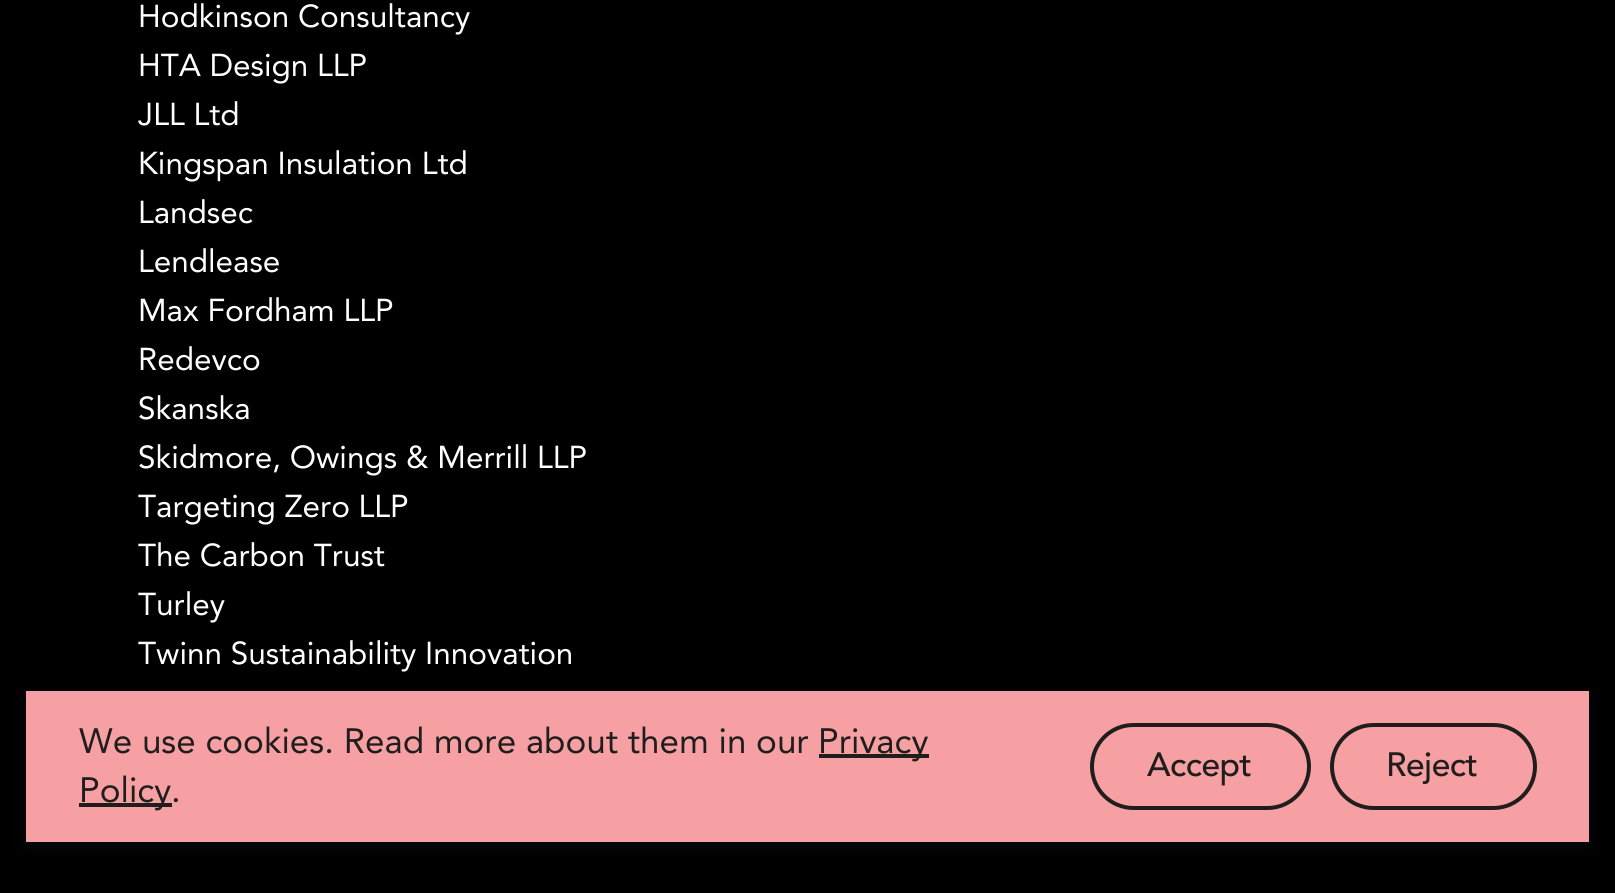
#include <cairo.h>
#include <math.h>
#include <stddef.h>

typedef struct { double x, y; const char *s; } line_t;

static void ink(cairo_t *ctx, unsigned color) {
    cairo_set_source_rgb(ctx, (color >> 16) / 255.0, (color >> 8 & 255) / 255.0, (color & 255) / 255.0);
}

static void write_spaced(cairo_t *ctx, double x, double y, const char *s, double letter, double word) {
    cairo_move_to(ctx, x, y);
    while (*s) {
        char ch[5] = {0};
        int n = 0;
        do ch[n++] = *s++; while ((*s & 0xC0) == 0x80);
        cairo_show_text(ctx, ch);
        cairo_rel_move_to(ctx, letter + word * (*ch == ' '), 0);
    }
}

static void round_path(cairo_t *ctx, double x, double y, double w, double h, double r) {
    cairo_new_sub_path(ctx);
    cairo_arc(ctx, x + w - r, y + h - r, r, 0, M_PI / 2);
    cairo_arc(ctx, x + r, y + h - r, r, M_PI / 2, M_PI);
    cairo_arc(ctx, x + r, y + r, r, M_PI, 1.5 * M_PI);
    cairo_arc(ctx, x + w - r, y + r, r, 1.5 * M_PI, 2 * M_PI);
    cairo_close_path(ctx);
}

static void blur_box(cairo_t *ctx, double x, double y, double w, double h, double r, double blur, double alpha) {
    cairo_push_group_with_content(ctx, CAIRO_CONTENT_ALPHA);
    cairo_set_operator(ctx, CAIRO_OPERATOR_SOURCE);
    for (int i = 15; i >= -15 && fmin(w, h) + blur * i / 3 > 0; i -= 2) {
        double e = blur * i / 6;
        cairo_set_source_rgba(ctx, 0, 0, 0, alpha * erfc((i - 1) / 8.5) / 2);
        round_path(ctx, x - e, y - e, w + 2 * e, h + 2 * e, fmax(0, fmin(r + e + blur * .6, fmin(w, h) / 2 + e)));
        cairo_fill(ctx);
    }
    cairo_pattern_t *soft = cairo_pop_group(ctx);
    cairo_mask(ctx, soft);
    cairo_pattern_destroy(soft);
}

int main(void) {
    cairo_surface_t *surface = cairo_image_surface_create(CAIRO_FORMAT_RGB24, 1615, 893);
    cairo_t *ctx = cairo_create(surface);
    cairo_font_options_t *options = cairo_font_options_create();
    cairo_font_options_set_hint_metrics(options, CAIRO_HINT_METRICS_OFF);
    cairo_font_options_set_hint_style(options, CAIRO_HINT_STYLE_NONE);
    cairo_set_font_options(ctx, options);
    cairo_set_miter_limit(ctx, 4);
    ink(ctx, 0x000000);
    cairo_paint(ctx);
    cairo_select_font_face(ctx, "Avenir", CAIRO_FONT_SLANT_NORMAL, CAIRO_FONT_WEIGHT_NORMAL);
    cairo_set_font_size(ctx, 31.5);
    ink(ctx, 0xFFFFFF);
    {
        static const line_t items[] = {
            {138, 27, "Hodkinson Consultancy"},
            {138, 76, "HTA Design LLP"},
            {138, 125, "JLL Ltd"},
            {138, 174, "Kingspan Insulation Ltd"},
            {138, 223, "Landsec"},
            {138, 272, "Lendlease"},
            {138, 321, "Max Fordham LLP"},
            {138, 370, "Redevco"},
            {138, 419, "Skanska"},
            {138, 468, "Skidmore, Owings & Merrill LLP"},
            {138, 517, "Targeting Zero LLP"},
            {138, 566, "The Carbon Trust"},
            {138, 615, "Turley"},
            {138, 664, "Twinn Sustainability Innovation"},
        };
        for (size_t i = 0; i < sizeof items / sizeof *items; i++) {
            cairo_move_to(ctx, items[i].x, items[i].y);
            cairo_show_text(ctx, items[i].s);
        }
    }
    ink(ctx, 0x2A3D6D);
    blur_box(ctx, 26, 697, 1563, 150, 0, 8, 0.15);
    ink(ctx, 0xF6A0A3);
    cairo_rectangle(ctx, 26, 691, 1563, 151);
    cairo_fill(ctx);
    cairo_set_font_size(ctx, 35);
    ink(ctx, 0x201D1D);
    cairo_move_to(ctx, 79, 753);
    cairo_show_text(ctx, "We use cookies. Read more about them in our");
    cairo_rectangle(ctx, 819, 754, 110, 4);
    cairo_fill(ctx);
    cairo_move_to(ctx, 818, 753);
    cairo_show_text(ctx, "Privacy");
    cairo_rectangle(ctx, 79, 803, 93, 4);
    cairo_fill(ctx);
    cairo_move_to(ctx, 79, 802);
    cairo_show_text(ctx, "Policy.");
    round_path(ctx, 1092, 725, 217, 83, 41.5);
    cairo_set_line_width(ctx, 4);
    cairo_stroke(ctx);
    cairo_select_font_face(ctx, "Avenir Medium", CAIRO_FONT_SLANT_NORMAL, CAIRO_FONT_WEIGHT_NORMAL);
    cairo_set_font_size(ctx, 33.5);
    write_spaced(ctx, 1147, 776, "Accept", -0.5, 0);
    round_path(ctx, 1332, 725, 203, 83, 41.5);
    cairo_stroke(ctx);
    write_spaced(ctx, 1386, 776, "Reject", -0.5, 0);
    cairo_surface_write_to_png(surface, "image.png");
    cairo_font_options_destroy(options);
    cairo_destroy(ctx);
    cairo_surface_destroy(surface);
    return 0;
}
